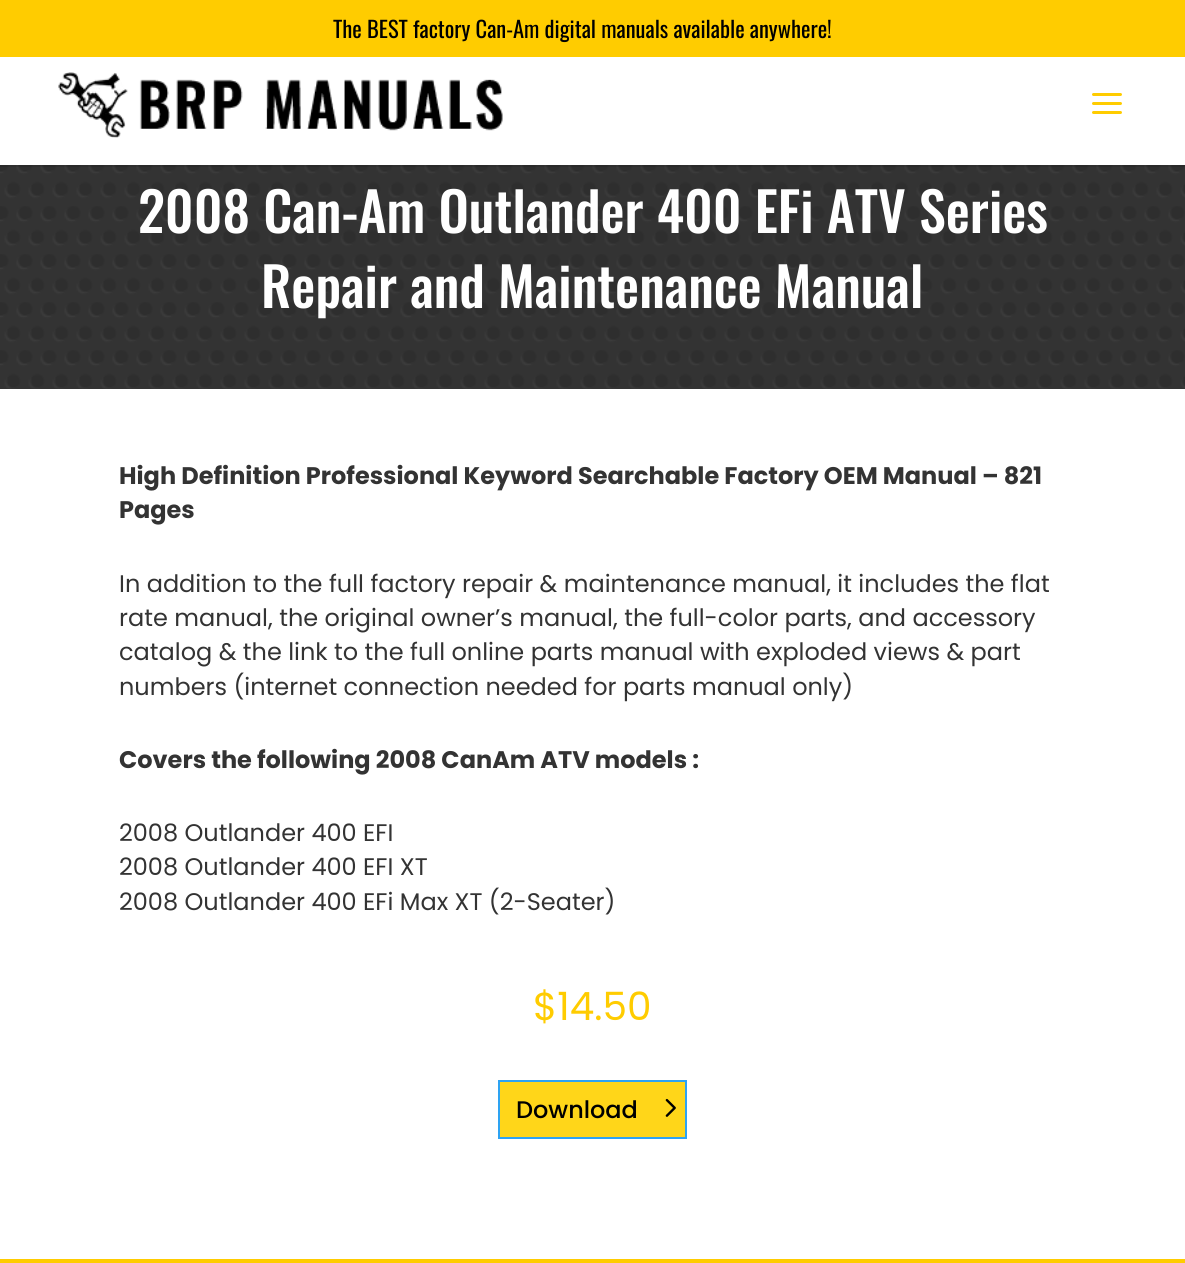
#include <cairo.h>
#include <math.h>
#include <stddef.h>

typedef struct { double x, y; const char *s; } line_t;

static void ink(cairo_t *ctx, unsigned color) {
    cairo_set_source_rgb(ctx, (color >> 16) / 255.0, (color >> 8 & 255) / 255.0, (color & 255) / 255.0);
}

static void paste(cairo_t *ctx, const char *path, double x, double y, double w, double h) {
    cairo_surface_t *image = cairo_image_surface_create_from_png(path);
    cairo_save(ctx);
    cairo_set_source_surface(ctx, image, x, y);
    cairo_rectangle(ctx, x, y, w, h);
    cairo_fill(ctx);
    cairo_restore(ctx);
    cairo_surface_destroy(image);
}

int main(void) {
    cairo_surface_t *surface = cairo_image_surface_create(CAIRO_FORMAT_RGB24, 1185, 1263);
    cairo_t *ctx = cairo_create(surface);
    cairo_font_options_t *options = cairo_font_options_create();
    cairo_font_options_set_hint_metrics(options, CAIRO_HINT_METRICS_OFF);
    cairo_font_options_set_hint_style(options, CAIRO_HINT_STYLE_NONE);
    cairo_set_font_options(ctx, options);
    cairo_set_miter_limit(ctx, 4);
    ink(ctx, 0xFFFFFF);
    cairo_paint(ctx);
    ink(ctx, 0xFFCC00);
    cairo_rectangle(ctx, 0, 0, 1185, 57);
    cairo_fill(ctx);
    cairo_select_font_face(ctx, "Oswald", CAIRO_FONT_SLANT_NORMAL, CAIRO_FONT_WEIGHT_NORMAL);
    cairo_set_font_size(ctx, 22.5);
    ink(ctx, 0x000000);
    cairo_move_to(ctx, 333, 38);
    cairo_show_text(ctx, "The BEST factory Can-Am digital manuals available anywhere!");
    ink(ctx, 0x333333);
    cairo_rectangle(ctx, 0, 165, 1185, 224);
    cairo_fill(ctx);
    paste(ctx, "media/3.png", 0, 165, 1185, 224);
    cairo_set_source_rgba(ctx, 0, 0, 0, 0.1);
    cairo_rectangle(ctx, 0, 165, 1185, 2);
    cairo_fill(ctx);
    paste(ctx, "media/1.png", 58, 72, 445, 66);
    paste(ctx, "media/2.png", 1092, 93, 30, 21);
    cairo_select_font_face(ctx, "Oswald Medium", CAIRO_FONT_SLANT_NORMAL, CAIRO_FONT_WEIGHT_NORMAL);
    cairo_set_font_size(ctx, 54);
    ink(ctx, 0xFFFFFF);
    cairo_move_to(ctx, 138, 233);
    cairo_show_text(ctx, "2008 Can-Am Outlander 400 EFi ATV Series");
    cairo_move_to(ctx, 261, 308);
    cairo_show_text(ctx, "Repair and Maintenance Manual");
    cairo_select_font_face(ctx, "Poppins", CAIRO_FONT_SLANT_NORMAL, CAIRO_FONT_WEIGHT_BOLD);
    cairo_set_font_size(ctx, 24);
    ink(ctx, 0x333333);
    cairo_move_to(ctx, 119, 484);
    cairo_show_text(ctx, "High Definition Professional Keyword Searchable Factory OEM Manual – 821");
    cairo_move_to(ctx, 119, 518);
    cairo_show_text(ctx, "Pages");
    cairo_select_font_face(ctx, "Poppins", CAIRO_FONT_SLANT_NORMAL, CAIRO_FONT_WEIGHT_NORMAL);
    {
        static const line_t items[] = {
            {119, 592, "In addition to the full factory repair & maintenance manual, it includes the flat"},
            {119, 626, "rate manual, the original owner’s manual, the full-color parts, and accessory"},
            {119, 660, "catalog & the link to the full online parts manual with exploded views & part"},
            {119, 695, "numbers (internet connection needed for parts manual only)"},
        };
        for (size_t i = 0; i < sizeof items / sizeof *items; i++) {
            cairo_move_to(ctx, items[i].x, items[i].y);
            cairo_show_text(ctx, items[i].s);
        }
    }
    cairo_select_font_face(ctx, "Poppins", CAIRO_FONT_SLANT_NORMAL, CAIRO_FONT_WEIGHT_BOLD);
    cairo_move_to(ctx, 119, 768);
    cairo_show_text(ctx, "Covers the following 2008 CanAm ATV models :");
    cairo_select_font_face(ctx, "Poppins", CAIRO_FONT_SLANT_NORMAL, CAIRO_FONT_WEIGHT_NORMAL);
    {
        static const line_t items[] = {
            {119, 841, "2008 Outlander 400 EFI"},
            {119, 875, "2008 Outlander 400 EFI XT"},
            {119, 910, "2008 Outlander 400 EFi Max XT (2-Seater)"},
        };
        for (size_t i = 0; i < sizeof items / sizeof *items; i++) {
            cairo_move_to(ctx, items[i].x, items[i].y);
            cairo_show_text(ctx, items[i].s);
        }
    }
    cairo_set_font_size(ctx, 39);
    ink(ctx, 0xFFCC00);
    cairo_move_to(ctx, 533, 1020);
    cairo_show_text(ctx, "$14.50");
    ink(ctx, 0xFFD619);
    cairo_rectangle(ctx, 499, 1081, 187, 57);
    cairo_fill_preserve(ctx);
    ink(ctx, 0x2EA3F2);
    cairo_stroke(ctx);
    cairo_select_font_face(ctx, "Poppins Medium", CAIRO_FONT_SLANT_NORMAL, CAIRO_FONT_WEIGHT_NORMAL);
    cairo_set_font_size(ctx, 24);
    ink(ctx, 0x000000);
    cairo_move_to(ctx, 516, 1118);
    cairo_show_text(ctx, "Download");
    paste(ctx, "media/4.png", 665, 1098, 11, 19);
    ink(ctx, 0xFFCC00);
    cairo_rectangle(ctx, 0, 1259, 1185, 4);
    cairo_fill(ctx);
    cairo_surface_write_to_png(surface, "image.png");
    cairo_font_options_destroy(options);
    cairo_destroy(ctx);
    cairo_surface_destroy(surface);
    return 0;
}
